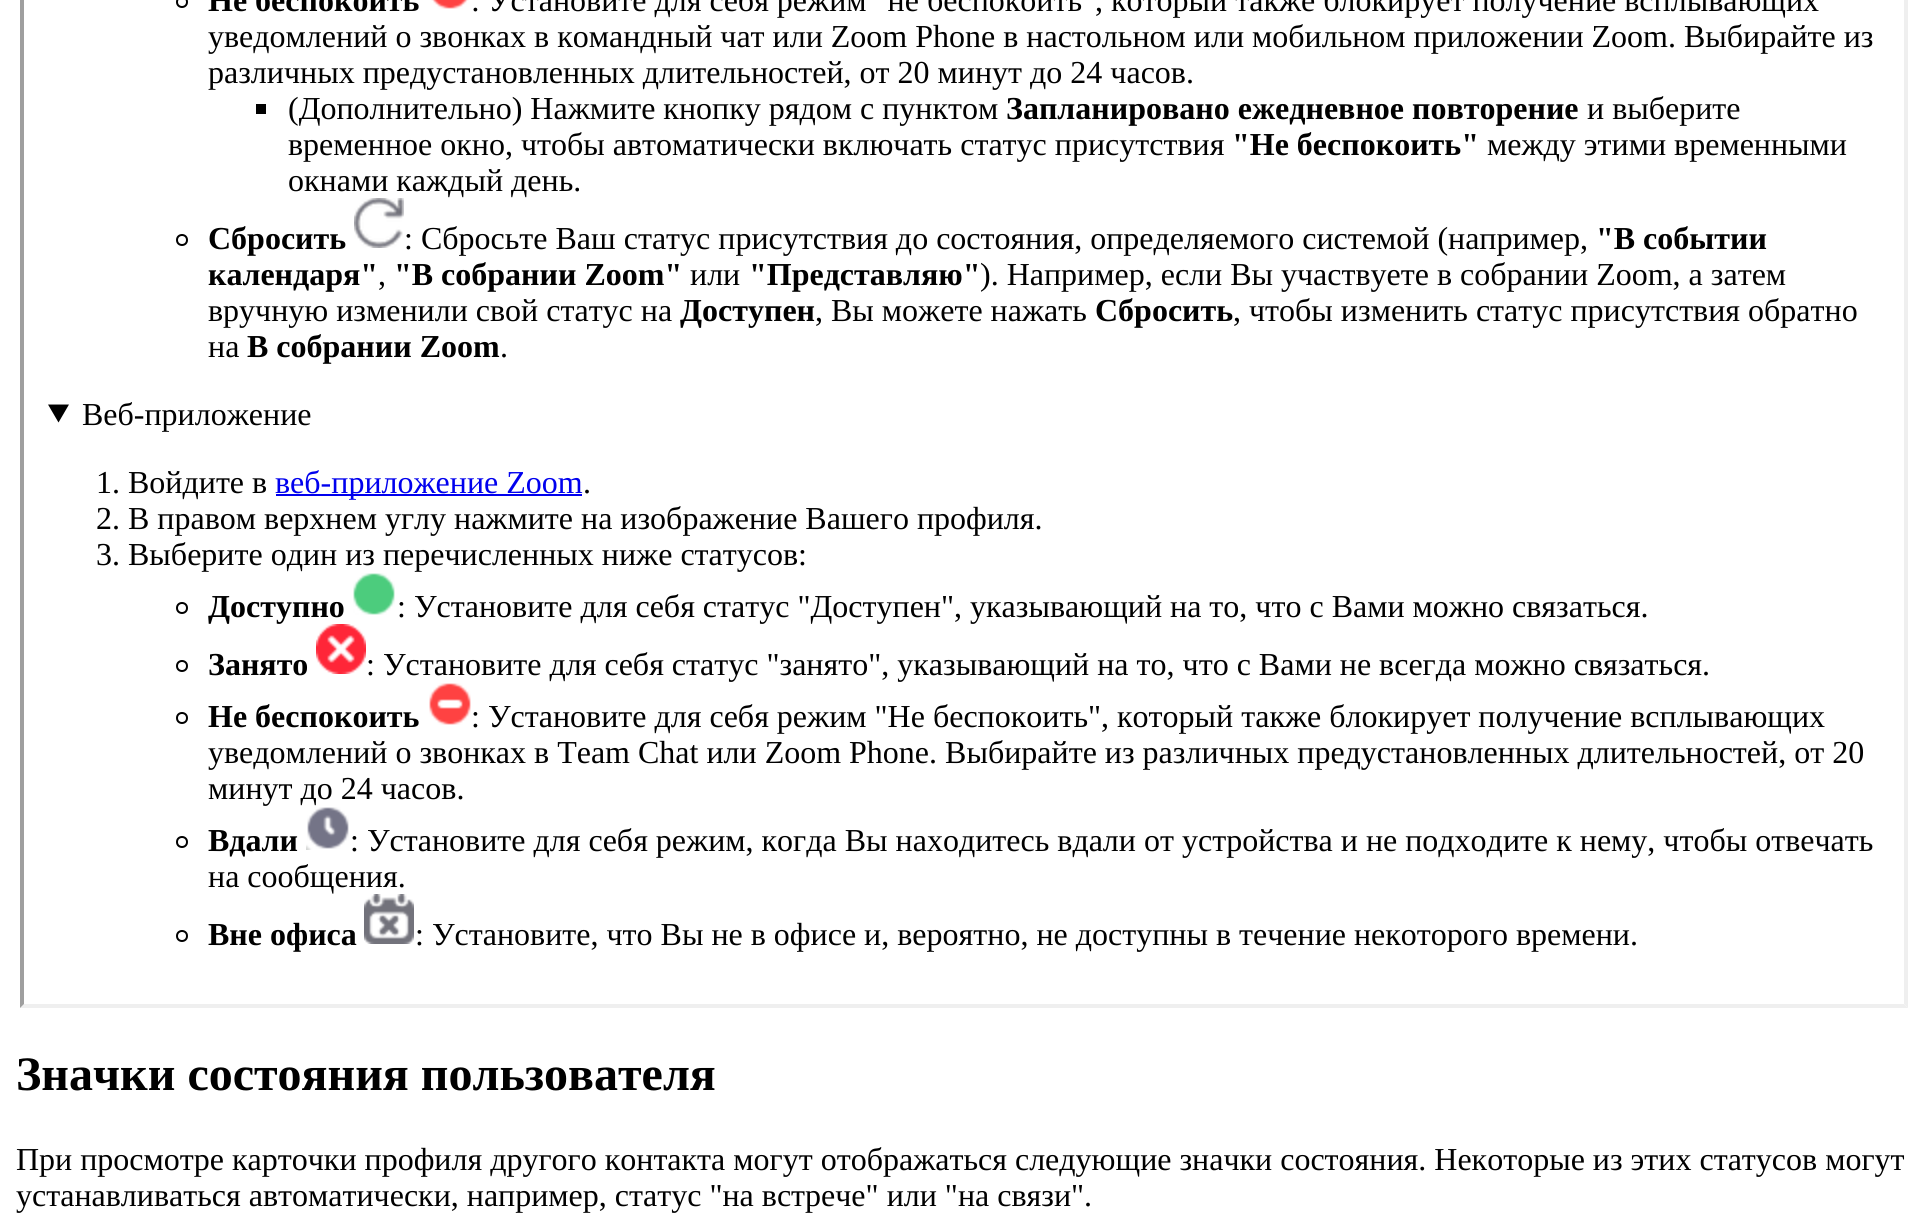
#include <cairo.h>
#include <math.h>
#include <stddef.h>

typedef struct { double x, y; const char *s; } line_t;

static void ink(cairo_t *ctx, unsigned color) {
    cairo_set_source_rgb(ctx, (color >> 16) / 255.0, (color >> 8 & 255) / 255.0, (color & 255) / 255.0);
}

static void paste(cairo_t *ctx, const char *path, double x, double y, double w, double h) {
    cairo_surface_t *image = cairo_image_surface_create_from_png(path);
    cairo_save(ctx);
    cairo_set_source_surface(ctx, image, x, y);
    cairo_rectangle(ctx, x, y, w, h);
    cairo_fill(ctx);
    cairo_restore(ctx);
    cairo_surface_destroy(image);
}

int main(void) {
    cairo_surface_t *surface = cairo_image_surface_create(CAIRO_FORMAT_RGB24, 1927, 1231);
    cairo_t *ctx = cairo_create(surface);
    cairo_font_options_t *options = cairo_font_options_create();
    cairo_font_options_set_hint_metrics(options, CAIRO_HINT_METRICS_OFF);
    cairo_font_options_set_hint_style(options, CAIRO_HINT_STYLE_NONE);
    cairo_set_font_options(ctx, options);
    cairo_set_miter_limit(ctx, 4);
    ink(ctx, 0xFFFFFF);
    cairo_paint(ctx);
    ink(ctx, 0xEFEFEF);
    cairo_new_path(ctx);
    cairo_move_to(ctx, 1908, -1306);
    cairo_line_to(ctx, 1908, 1008);
    cairo_line_to(ctx, 1904, 1004);
    cairo_line_to(ctx, 1904, -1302);
    cairo_close_path(ctx);
    cairo_fill(ctx);
    cairo_new_path(ctx);
    cairo_move_to(ctx, 1908, 1008);
    cairo_line_to(ctx, 20, 1008);
    cairo_line_to(ctx, 24, 1004);
    cairo_line_to(ctx, 1904, 1004);
    cairo_close_path(ctx);
    cairo_fill(ctx);
    ink(ctx, 0x9F9F9F);
    cairo_new_path(ctx);
    cairo_move_to(ctx, 20, 1008);
    cairo_line_to(ctx, 20, -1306);
    cairo_line_to(ctx, 24, -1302);
    cairo_line_to(ctx, 24, 1004);
    cairo_close_path(ctx);
    cairo_fill(ctx);
    cairo_arc(ctx, 182, 2, 5, 0, 2 * M_PI);
    ink(ctx, 0x000000);
    cairo_stroke(ctx);
    cairo_select_font_face(ctx, "Liberation Serif", CAIRO_FONT_SLANT_NORMAL, CAIRO_FONT_WEIGHT_BOLD);
    cairo_set_font_size(ctx, 32);
    cairo_move_to(ctx, 208, 11);
    cairo_show_text(ctx, "Не беспокоить");
    paste(ctx, "media/1.png", 431, 0, 38, 9);
    cairo_select_font_face(ctx, "Liberation Serif", CAIRO_FONT_SLANT_NORMAL, CAIRO_FONT_WEIGHT_NORMAL);
    {
        static const line_t items[] = {
            {471, 11, ": Установите для себя режим \"не беспокоить\", который также блокирует получение всплывающих"},
            {208, 47, "уведомлений о звонках в командный чат или Zoom Phone в настольном или мобильном приложении Zoom. Выбирайте из"},
            {208, 83, "различных предустановленных длительностей, от 20 минут до 24 часов."},
        };
        for (size_t i = 0; i < sizeof items / sizeof *items; i++) {
            cairo_move_to(ctx, items[i].x, items[i].y);
            cairo_show_text(ctx, items[i].s);
        }
    }
    cairo_rectangle(ctx, 256, 104, 10, 10);
    cairo_fill(ctx);
    cairo_move_to(ctx, 288, 119);
    cairo_show_text(ctx, "(Дополнительно) Нажмите кнопку рядом с пунктом");
    cairo_select_font_face(ctx, "Liberation Serif", CAIRO_FONT_SLANT_NORMAL, CAIRO_FONT_WEIGHT_BOLD);
    cairo_move_to(ctx, 1006, 119);
    cairo_show_text(ctx, "Запланировано ежедневное повторение");
    cairo_select_font_face(ctx, "Liberation Serif", CAIRO_FONT_SLANT_NORMAL, CAIRO_FONT_WEIGHT_NORMAL);
    cairo_move_to(ctx, 1587, 119);
    cairo_show_text(ctx, "и выберите");
    cairo_move_to(ctx, 288, 155);
    cairo_show_text(ctx, "временное окно, чтобы автоматически включать статус присутствия");
    cairo_select_font_face(ctx, "Liberation Serif", CAIRO_FONT_SLANT_NORMAL, CAIRO_FONT_WEIGHT_BOLD);
    cairo_move_to(ctx, 1232, 155);
    cairo_show_text(ctx, "\"Не беспокоить\"");
    cairo_select_font_face(ctx, "Liberation Serif", CAIRO_FONT_SLANT_NORMAL, CAIRO_FONT_WEIGHT_NORMAL);
    cairo_move_to(ctx, 1487, 155);
    cairo_show_text(ctx, "между этими временными");
    cairo_move_to(ctx, 288, 191);
    cairo_show_text(ctx, "окнами каждый день.");
    cairo_new_path(ctx);
    cairo_arc(ctx, 182, 240, 5, 0, 2 * M_PI);
    cairo_stroke(ctx);
    cairo_select_font_face(ctx, "Liberation Serif", CAIRO_FONT_SLANT_NORMAL, CAIRO_FONT_WEIGHT_BOLD);
    cairo_move_to(ctx, 208, 249);
    cairo_show_text(ctx, "Сбросить");
    paste(ctx, "media/2.png", 354, 198, 50, 50);
    cairo_select_font_face(ctx, "Liberation Serif", CAIRO_FONT_SLANT_NORMAL, CAIRO_FONT_WEIGHT_NORMAL);
    cairo_move_to(ctx, 404, 249);
    cairo_show_text(ctx, ": Сбросьте Ваш статус присутствия до состояния, определяемого системой (например,");
    cairo_select_font_face(ctx, "Liberation Serif", CAIRO_FONT_SLANT_NORMAL, CAIRO_FONT_WEIGHT_BOLD);
    cairo_move_to(ctx, 1596, 249);
    cairo_show_text(ctx, "\"В событии");
    cairo_move_to(ctx, 208, 285);
    cairo_show_text(ctx, "календаря\"");
    cairo_select_font_face(ctx, "Liberation Serif", CAIRO_FONT_SLANT_NORMAL, CAIRO_FONT_WEIGHT_NORMAL);
    cairo_move_to(ctx, 378, 285);
    cairo_show_text(ctx, ",");
    cairo_select_font_face(ctx, "Liberation Serif", CAIRO_FONT_SLANT_NORMAL, CAIRO_FONT_WEIGHT_BOLD);
    cairo_move_to(ctx, 394, 285);
    cairo_show_text(ctx, "\"В собрании Zoom\"");
    cairo_select_font_face(ctx, "Liberation Serif", CAIRO_FONT_SLANT_NORMAL, CAIRO_FONT_WEIGHT_NORMAL);
    cairo_move_to(ctx, 690, 285);
    cairo_show_text(ctx, "или");
    cairo_select_font_face(ctx, "Liberation Serif", CAIRO_FONT_SLANT_NORMAL, CAIRO_FONT_WEIGHT_BOLD);
    cairo_move_to(ctx, 749, 285);
    cairo_show_text(ctx, "\"Представляю\"");
    cairo_select_font_face(ctx, "Liberation Serif", CAIRO_FONT_SLANT_NORMAL, CAIRO_FONT_WEIGHT_NORMAL);
    cairo_move_to(ctx, 980, 285);
    cairo_show_text(ctx, "). Например, если Вы участвуете в собрании Zoom, а затем");
    cairo_move_to(ctx, 208, 321);
    cairo_show_text(ctx, "вручную изменили свой статус на");
    cairo_select_font_face(ctx, "Liberation Serif", CAIRO_FONT_SLANT_NORMAL, CAIRO_FONT_WEIGHT_BOLD);
    cairo_move_to(ctx, 680, 321);
    cairo_show_text(ctx, "Доступен");
    cairo_select_font_face(ctx, "Liberation Serif", CAIRO_FONT_SLANT_NORMAL, CAIRO_FONT_WEIGHT_NORMAL);
    cairo_move_to(ctx, 815, 321);
    cairo_show_text(ctx, ", Вы можете нажать");
    cairo_select_font_face(ctx, "Liberation Serif", CAIRO_FONT_SLANT_NORMAL, CAIRO_FONT_WEIGHT_BOLD);
    cairo_move_to(ctx, 1095, 321);
    cairo_show_text(ctx, "Сбросить");
    cairo_select_font_face(ctx, "Liberation Serif", CAIRO_FONT_SLANT_NORMAL, CAIRO_FONT_WEIGHT_NORMAL);
    cairo_move_to(ctx, 1233, 321);
    cairo_show_text(ctx, ", чтобы изменить статус присутствия обратно");
    cairo_move_to(ctx, 208, 357);
    cairo_show_text(ctx, "на");
    cairo_select_font_face(ctx, "Liberation Serif", CAIRO_FONT_SLANT_NORMAL, CAIRO_FONT_WEIGHT_BOLD);
    cairo_move_to(ctx, 247, 357);
    cairo_show_text(ctx, "В собрании Zoom");
    cairo_select_font_face(ctx, "Liberation Serif", CAIRO_FONT_SLANT_NORMAL, CAIRO_FONT_WEIGHT_NORMAL);
    cairo_move_to(ctx, 500, 357);
    cairo_show_text(ctx, ".");
    cairo_new_path(ctx);
    cairo_move_to(ctx, 48, 404.5);
    cairo_line_to(ctx, 69, 404.5);
    cairo_line_to(ctx, 58.5, 422.5);
    cairo_close_path(ctx);
    cairo_fill(ctx);
    cairo_move_to(ctx, 82, 425);
    cairo_show_text(ctx, "Веб-приложение");
    cairo_move_to(ctx, 96, 493);
    cairo_show_text(ctx, "1. Войдите в");
    ink(ctx, 0x0000EE);
    cairo_rectangle(ctx, 276, 494, 306, 2);
    cairo_fill(ctx);
    cairo_move_to(ctx, 275, 493);
    cairo_show_text(ctx, "веб-приложение Zoom");
    ink(ctx, 0x000000);
    {
        static const line_t items[] = {
            {583, 493, "."},
            {96, 529, "2. В правом верхнем углу нажмите на изображение Вашего профиля."},
            {96, 565, "3. Выберите один из перечисленных ниже статусов:"},
        };
        for (size_t i = 0; i < sizeof items / sizeof *items; i++) {
            cairo_move_to(ctx, items[i].x, items[i].y);
            cairo_show_text(ctx, items[i].s);
        }
    }
    cairo_new_path(ctx);
    cairo_arc(ctx, 182, 608, 5, 0, 2 * M_PI);
    cairo_stroke(ctx);
    cairo_select_font_face(ctx, "Liberation Serif", CAIRO_FONT_SLANT_NORMAL, CAIRO_FONT_WEIGHT_BOLD);
    cairo_move_to(ctx, 208, 617);
    cairo_show_text(ctx, "Доступно");
    paste(ctx, "media/3.png", 353, 573, 42, 42);
    cairo_select_font_face(ctx, "Liberation Serif", CAIRO_FONT_SLANT_NORMAL, CAIRO_FONT_WEIGHT_NORMAL);
    cairo_move_to(ctx, 397, 617);
    cairo_show_text(ctx, ": Установите для себя статус \"Доступен\", указывающий на то, что с Вами можно связаться.");
    cairo_new_path(ctx);
    cairo_arc(ctx, 182, 666, 5, 0, 2 * M_PI);
    cairo_stroke(ctx);
    cairo_select_font_face(ctx, "Liberation Serif", CAIRO_FONT_SLANT_NORMAL, CAIRO_FONT_WEIGHT_BOLD);
    cairo_move_to(ctx, 208, 675);
    cairo_show_text(ctx, "Занято");
    paste(ctx, "media/4.png", 316, 624, 50, 50);
    cairo_select_font_face(ctx, "Liberation Serif", CAIRO_FONT_SLANT_NORMAL, CAIRO_FONT_WEIGHT_NORMAL);
    cairo_move_to(ctx, 366, 675);
    cairo_show_text(ctx, ": Установите для себя статус \"занято\", указывающий на то, что с Вами не всегда можно связаться.");
    cairo_new_path(ctx);
    cairo_arc(ctx, 182, 718, 5, 0, 2 * M_PI);
    cairo_stroke(ctx);
    cairo_select_font_face(ctx, "Liberation Serif", CAIRO_FONT_SLANT_NORMAL, CAIRO_FONT_WEIGHT_BOLD);
    cairo_move_to(ctx, 208, 727);
    cairo_show_text(ctx, "Не беспокоить");
    paste(ctx, "media/5.png", 429, 683, 42, 42);
    cairo_select_font_face(ctx, "Liberation Serif", CAIRO_FONT_SLANT_NORMAL, CAIRO_FONT_WEIGHT_NORMAL);
    {
        static const line_t items[] = {
            {471, 727, ": Установите для себя режим \"Не беспокоить\", который также блокирует получение всплывающих"},
            {208, 763, "уведомлений о звонках в Team Chat или Zoom Phone. Выбирайте из различных предустановленных длительностей, от 20"},
            {208, 799, "минут до 24 часов."},
        };
        for (size_t i = 0; i < sizeof items / sizeof *items; i++) {
            cairo_move_to(ctx, items[i].x, items[i].y);
            cairo_show_text(ctx, items[i].s);
        }
    }
    cairo_new_path(ctx);
    cairo_arc(ctx, 182, 842, 5, 0, 2 * M_PI);
    cairo_stroke(ctx);
    cairo_select_font_face(ctx, "Liberation Serif", CAIRO_FONT_SLANT_NORMAL, CAIRO_FONT_WEIGHT_BOLD);
    cairo_move_to(ctx, 208, 851);
    cairo_show_text(ctx, "Вдали");
    paste(ctx, "media/6.png", 306, 807, 43, 43);
    cairo_select_font_face(ctx, "Liberation Serif", CAIRO_FONT_SLANT_NORMAL, CAIRO_FONT_WEIGHT_NORMAL);
    cairo_move_to(ctx, 350, 851);
    cairo_show_text(ctx, ": Установите для себя режим, когда Вы находитесь вдали от устройства и не подходите к нему, чтобы отвечать");
    cairo_move_to(ctx, 208, 887);
    cairo_show_text(ctx, "на сообщения.");
    cairo_new_path(ctx);
    cairo_arc(ctx, 182, 936, 5, 0, 2 * M_PI);
    cairo_stroke(ctx);
    cairo_select_font_face(ctx, "Liberation Serif", CAIRO_FONT_SLANT_NORMAL, CAIRO_FONT_WEIGHT_BOLD);
    cairo_move_to(ctx, 208, 945);
    cairo_show_text(ctx, "Вне офиса");
    paste(ctx, "media/7.png", 364, 894, 50, 50);
    cairo_select_font_face(ctx, "Liberation Serif", CAIRO_FONT_SLANT_NORMAL, CAIRO_FONT_WEIGHT_NORMAL);
    cairo_move_to(ctx, 415, 945);
    cairo_show_text(ctx, ": Установите, что Вы не в офисе и, вероятно, не доступны в течение некоторого времени.");
    cairo_select_font_face(ctx, "Liberation Serif", CAIRO_FONT_SLANT_NORMAL, CAIRO_FONT_WEIGHT_BOLD);
    cairo_set_font_size(ctx, 48);
    cairo_move_to(ctx, 16, 1090);
    cairo_show_text(ctx, "Значки состояния пользователя");
    cairo_select_font_face(ctx, "Liberation Serif", CAIRO_FONT_SLANT_NORMAL, CAIRO_FONT_WEIGHT_NORMAL);
    cairo_set_font_size(ctx, 32);
    cairo_move_to(ctx, 16, 1170);
    cairo_show_text(ctx, "При просмотре карточки профиля другого контакта могут отображаться следующие значки состояния. Некоторые из этих статусов могут");
    cairo_move_to(ctx, 16, 1206);
    cairo_show_text(ctx, "устанавливаться автоматически, например, статус \"на встрече\" или \"на связи\".");
    cairo_surface_write_to_png(surface, "image.png");
    cairo_font_options_destroy(options);
    cairo_destroy(ctx);
    cairo_surface_destroy(surface);
    return 0;
}
